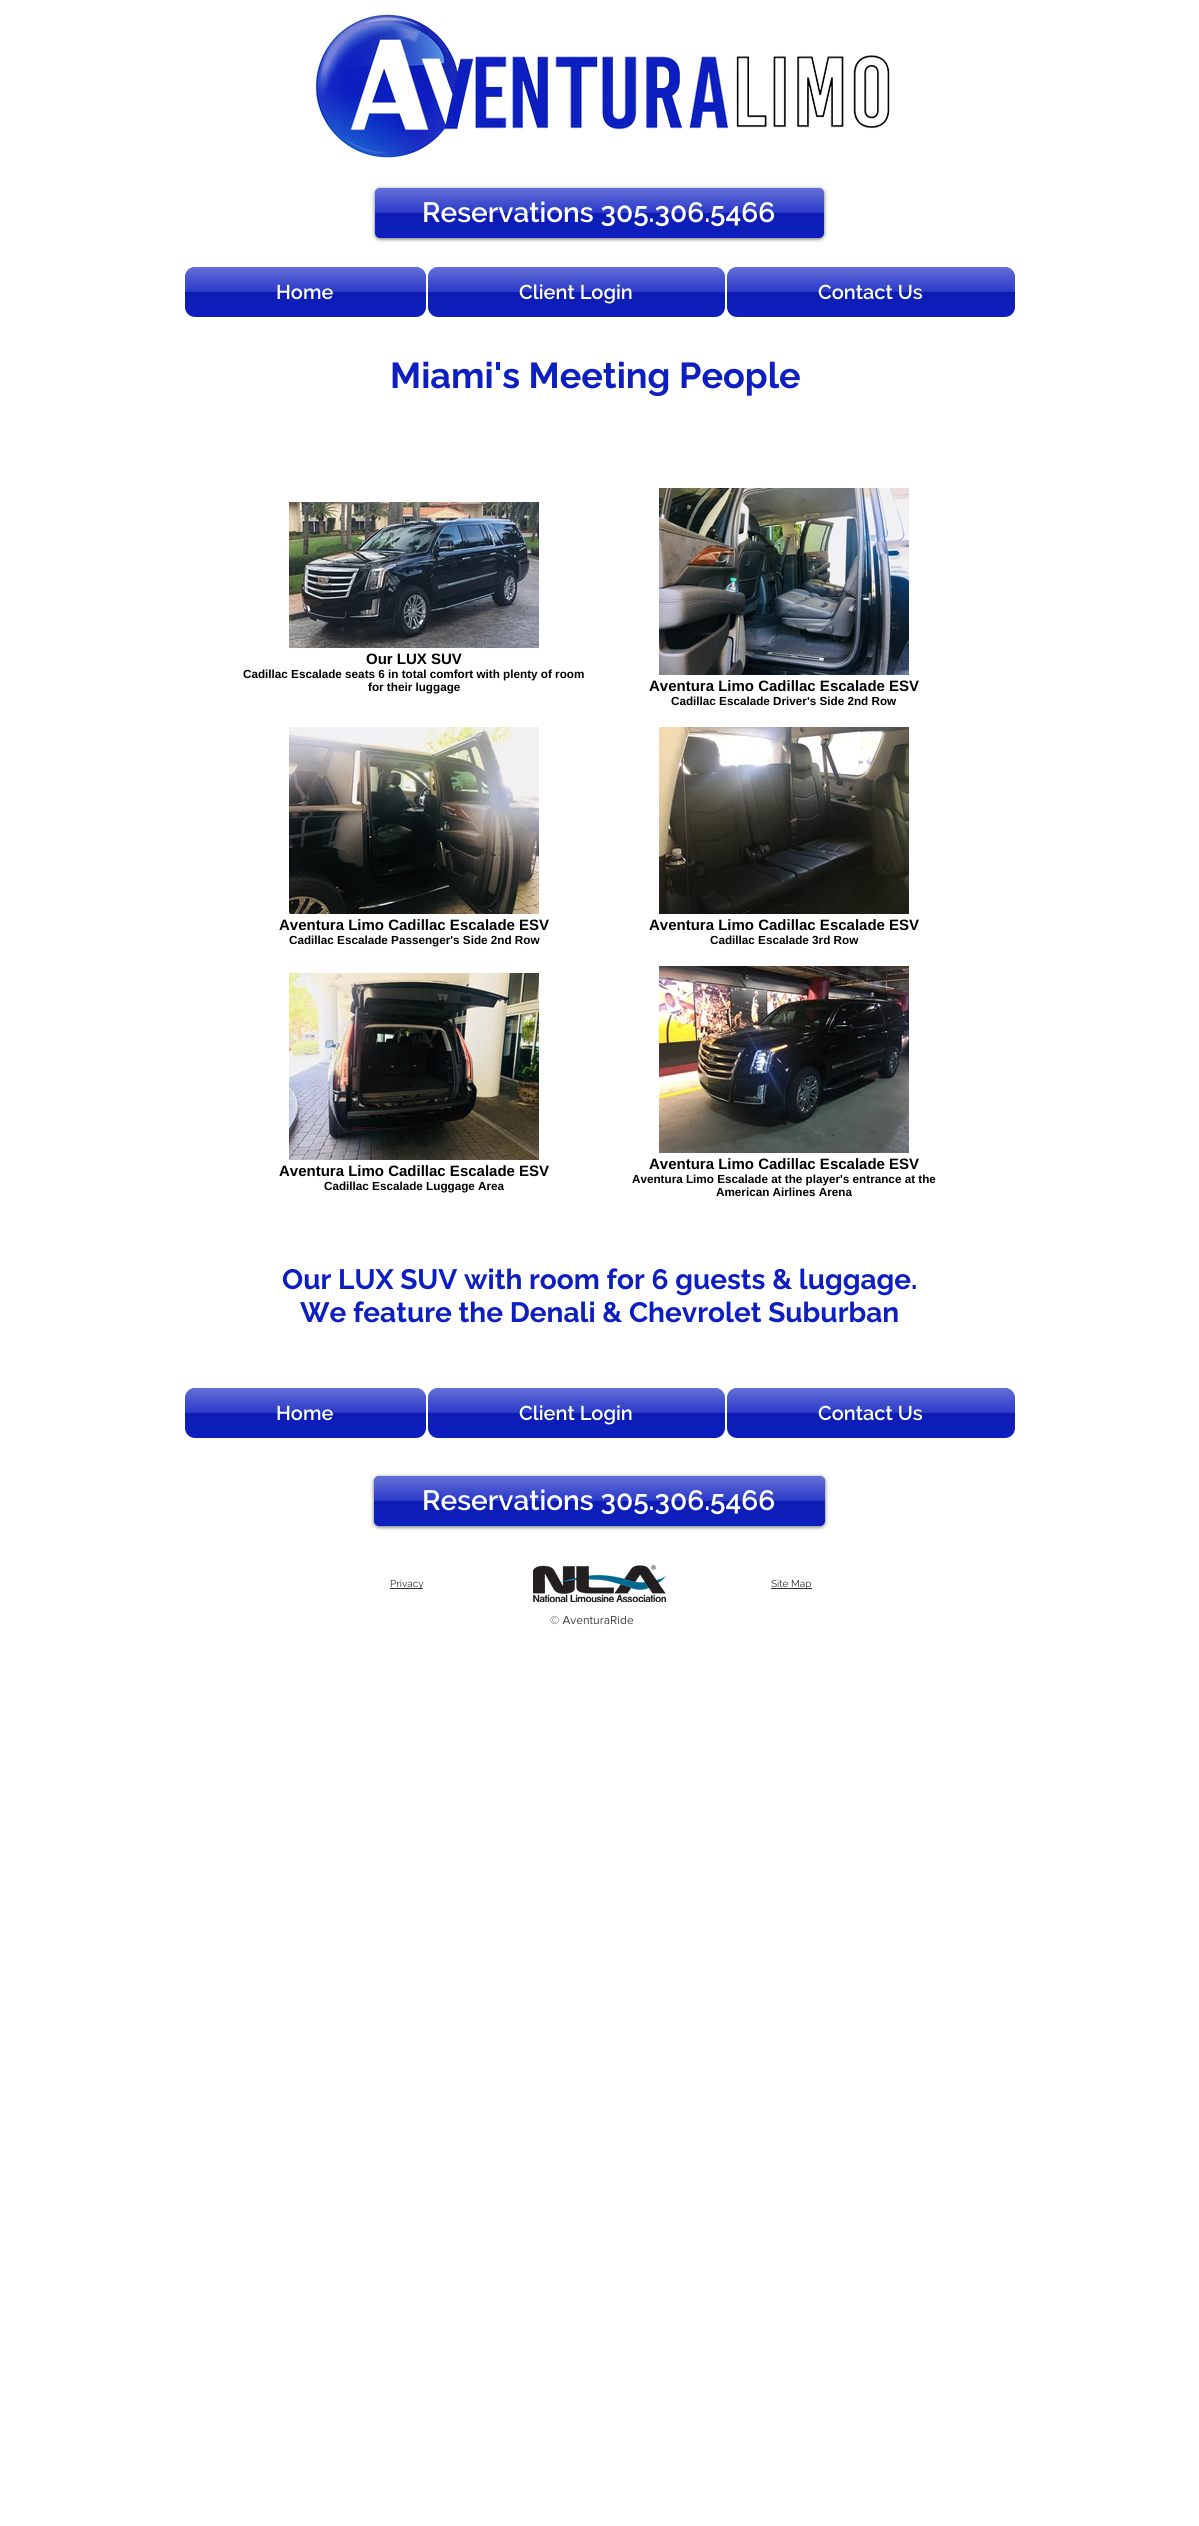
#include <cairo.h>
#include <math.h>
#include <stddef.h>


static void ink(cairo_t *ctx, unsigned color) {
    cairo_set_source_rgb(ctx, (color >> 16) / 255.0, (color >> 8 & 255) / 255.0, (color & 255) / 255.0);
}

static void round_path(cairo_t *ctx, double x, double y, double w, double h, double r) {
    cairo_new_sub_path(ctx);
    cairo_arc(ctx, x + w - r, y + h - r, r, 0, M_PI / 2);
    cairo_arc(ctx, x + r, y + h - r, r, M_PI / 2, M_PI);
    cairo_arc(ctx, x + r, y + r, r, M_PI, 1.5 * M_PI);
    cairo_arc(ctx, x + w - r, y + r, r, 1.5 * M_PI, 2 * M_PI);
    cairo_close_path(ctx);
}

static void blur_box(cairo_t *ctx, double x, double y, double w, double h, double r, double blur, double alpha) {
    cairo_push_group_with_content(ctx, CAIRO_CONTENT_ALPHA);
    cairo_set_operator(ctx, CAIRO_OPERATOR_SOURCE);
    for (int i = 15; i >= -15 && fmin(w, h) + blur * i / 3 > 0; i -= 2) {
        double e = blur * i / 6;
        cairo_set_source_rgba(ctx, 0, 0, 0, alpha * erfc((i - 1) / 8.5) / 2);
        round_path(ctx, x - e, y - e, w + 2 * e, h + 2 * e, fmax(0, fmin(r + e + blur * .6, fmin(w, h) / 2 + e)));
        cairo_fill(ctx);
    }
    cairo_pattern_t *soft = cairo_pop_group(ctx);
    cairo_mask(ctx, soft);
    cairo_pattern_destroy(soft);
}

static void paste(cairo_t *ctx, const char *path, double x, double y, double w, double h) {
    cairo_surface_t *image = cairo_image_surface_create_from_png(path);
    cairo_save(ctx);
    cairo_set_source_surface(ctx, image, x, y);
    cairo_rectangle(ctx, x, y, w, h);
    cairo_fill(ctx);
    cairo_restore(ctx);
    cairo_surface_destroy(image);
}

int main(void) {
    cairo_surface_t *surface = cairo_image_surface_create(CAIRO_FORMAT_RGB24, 1199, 2526);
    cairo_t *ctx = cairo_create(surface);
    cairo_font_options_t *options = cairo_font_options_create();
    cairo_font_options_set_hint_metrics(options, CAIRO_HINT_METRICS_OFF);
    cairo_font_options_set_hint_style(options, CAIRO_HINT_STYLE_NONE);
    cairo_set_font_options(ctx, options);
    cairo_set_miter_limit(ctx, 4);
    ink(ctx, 0xFFFFFF);
    cairo_paint(ctx);
    paste(ctx, "media/1.png", 315, 14, 575, 144);
    ink(ctx, 0x000000);
    blur_box(ctx, 375, 189, 449, 50, 5, 2, 0.6);
    ink(ctx, 0x0E1FC1);
    round_path(ctx, 375, 188, 449, 50, 5);
    cairo_fill(ctx);
    paste(ctx, "media/2.png", 375, 188, 449, 46);
    cairo_select_font_face(ctx, "Raleway SemiBold", CAIRO_FONT_SLANT_NORMAL, CAIRO_FONT_WEIGHT_NORMAL);
    cairo_set_font_size(ctx, 28);
    ink(ctx, 0xFFFFFF);
    cairo_move_to(ctx, 422, 222);
    cairo_show_text(ctx, "Reservations 305.306.5466");
    ink(ctx, 0x0E1FC1);
    round_path(ctx, 185, 267, 241, 50, 10);
    cairo_fill(ctx);
    paste(ctx, "media/3.png", 185, 267, 241, 46);
    cairo_set_font_size(ctx, 20);
    ink(ctx, 0xFFFFFF);
    cairo_move_to(ctx, 276, 299);
    cairo_show_text(ctx, "Home");
    ink(ctx, 0x0E1FC1);
    round_path(ctx, 428, 267, 297, 50, 10);
    cairo_fill(ctx);
    paste(ctx, "media/4.png", 428, 267, 297, 46);
    ink(ctx, 0xFFFFFF);
    cairo_move_to(ctx, 519, 299);
    cairo_show_text(ctx, "Client Login");
    ink(ctx, 0x0E1FC1);
    round_path(ctx, 727, 267, 288, 50, 10);
    cairo_fill(ctx);
    paste(ctx, "media/5.png", 727, 267, 288, 46);
    ink(ctx, 0xFFFFFF);
    cairo_move_to(ctx, 818, 299);
    cairo_show_text(ctx, "Contact Us");
    cairo_select_font_face(ctx, "Raleway", CAIRO_FONT_SLANT_NORMAL, CAIRO_FONT_WEIGHT_BOLD);
    cairo_set_font_size(ctx, 36);
    ink(ctx, 0x0E1FC1);
    cairo_move_to(ctx, 390, 388);
    cairo_show_text(ctx, "Miami's Meeting People");
    paste(ctx, "media/6.png", 289, 502, 250, 146);
    cairo_select_font_face(ctx, "Liberation Sans", CAIRO_FONT_SLANT_NORMAL, CAIRO_FONT_WEIGHT_BOLD);
    cairo_set_font_size(ctx, 15);
    ink(ctx, 0x000000);
    cairo_move_to(ctx, 366, 664);
    cairo_show_text(ctx, "Our LUX SUV");
    cairo_set_font_size(ctx, 11.7);
    cairo_move_to(ctx, 243, 678);
    cairo_show_text(ctx, "Cadillac Escalade seats 6 in total comfort with plenty of room");
    cairo_move_to(ctx, 368, 691);
    cairo_show_text(ctx, "for their luggage");
    paste(ctx, "media/7.png", 659, 488, 250, 187);
    cairo_set_font_size(ctx, 15);
    cairo_move_to(ctx, 649, 691);
    cairo_show_text(ctx, "Aventura Limo Cadillac Escalade ESV");
    cairo_set_font_size(ctx, 11.7);
    cairo_move_to(ctx, 671, 705);
    cairo_show_text(ctx, "Cadillac Escalade Driver's Side 2nd Row");
    paste(ctx, "media/8.png", 289, 727, 250, 187);
    cairo_set_font_size(ctx, 15);
    cairo_move_to(ctx, 279, 930);
    cairo_show_text(ctx, "Aventura Limo Cadillac Escalade ESV");
    cairo_set_font_size(ctx, 11.7);
    cairo_move_to(ctx, 289, 944);
    cairo_show_text(ctx, "Cadillac Escalade Passenger's Side 2nd Row");
    paste(ctx, "media/9.png", 659, 727, 250, 187);
    cairo_set_font_size(ctx, 15);
    cairo_move_to(ctx, 649, 930);
    cairo_show_text(ctx, "Aventura Limo Cadillac Escalade ESV");
    cairo_set_font_size(ctx, 11.7);
    cairo_move_to(ctx, 710, 944);
    cairo_show_text(ctx, "Cadillac Escalade 3rd Row");
    paste(ctx, "media/10.png", 289, 973, 250, 187);
    cairo_set_font_size(ctx, 15);
    cairo_move_to(ctx, 279, 1176);
    cairo_show_text(ctx, "Aventura Limo Cadillac Escalade ESV");
    cairo_set_font_size(ctx, 11.7);
    cairo_move_to(ctx, 324, 1190);
    cairo_show_text(ctx, "Cadillac Escalade Luggage Area");
    paste(ctx, "media/11.png", 659, 966, 250, 187);
    cairo_set_font_size(ctx, 15);
    cairo_move_to(ctx, 649, 1169);
    cairo_show_text(ctx, "Aventura Limo Cadillac Escalade ESV");
    cairo_set_font_size(ctx, 11.7);
    cairo_move_to(ctx, 632, 1183);
    cairo_show_text(ctx, "Aventura Limo Escalade at the player's entrance at the");
    cairo_move_to(ctx, 716, 1196);
    cairo_show_text(ctx, "American Airlines Arena");
    cairo_select_font_face(ctx, "Raleway", CAIRO_FONT_SLANT_NORMAL, CAIRO_FONT_WEIGHT_BOLD);
    cairo_set_font_size(ctx, 28);
    ink(ctx, 0x0E1FC1);
    cairo_move_to(ctx, 282, 1289);
    cairo_show_text(ctx, "Our LUX SUV with room for 6 guests & luggage.");
    cairo_move_to(ctx, 300, 1322);
    cairo_show_text(ctx, "We feature the Denali & Chevrolet Suburban");
    round_path(ctx, 185, 1388, 241, 50, 10);
    cairo_fill(ctx);
    paste(ctx, "media/3.png", 185, 1388, 241, 46);
    cairo_select_font_face(ctx, "Raleway SemiBold", CAIRO_FONT_SLANT_NORMAL, CAIRO_FONT_WEIGHT_NORMAL);
    cairo_set_font_size(ctx, 20);
    ink(ctx, 0xFFFFFF);
    cairo_move_to(ctx, 276, 1420);
    cairo_show_text(ctx, "Home");
    ink(ctx, 0x0E1FC1);
    round_path(ctx, 428, 1388, 297, 50, 10);
    cairo_fill(ctx);
    paste(ctx, "media/4.png", 428, 1388, 297, 46);
    ink(ctx, 0xFFFFFF);
    cairo_move_to(ctx, 519, 1420);
    cairo_show_text(ctx, "Client Login");
    ink(ctx, 0x0E1FC1);
    round_path(ctx, 727, 1388, 288, 50, 10);
    cairo_fill(ctx);
    paste(ctx, "media/5.png", 727, 1388, 288, 46);
    ink(ctx, 0xFFFFFF);
    cairo_move_to(ctx, 818, 1420);
    cairo_show_text(ctx, "Contact Us");
    ink(ctx, 0x000000);
    blur_box(ctx, 374, 1477, 451, 50, 5, 2, 0.6);
    ink(ctx, 0x0E1FC1);
    round_path(ctx, 374, 1476, 451, 50, 5);
    cairo_fill(ctx);
    paste(ctx, "media/12.png", 374, 1476, 451, 46);
    cairo_set_font_size(ctx, 28);
    ink(ctx, 0xFFFFFF);
    cairo_move_to(ctx, 422, 1510);
    cairo_show_text(ctx, "Reservations 305.306.5466");
    ink(ctx, 0x2F2E2E);
    cairo_rectangle(ctx, 390, 1588, 33, 1);
    cairo_fill(ctx);
    cairo_select_font_face(ctx, "Raleway", CAIRO_FONT_SLANT_NORMAL, CAIRO_FONT_WEIGHT_NORMAL);
    cairo_set_font_size(ctx, 10);
    cairo_move_to(ctx, 390, 1587);
    cairo_show_text(ctx, "Privacy");
    paste(ctx, "media/13.png", 533, 1565, 133, 37);
    cairo_rectangle(ctx, 771, 1588, 41, 1);
    cairo_fill(ctx);
    cairo_move_to(ctx, 771, 1587);
    cairo_show_text(ctx, "Site Map");
    cairo_select_font_face(ctx, "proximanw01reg", CAIRO_FONT_SLANT_NORMAL, CAIRO_FONT_WEIGHT_NORMAL);
    cairo_set_font_size(ctx, 12);
    ink(ctx, 0x414141);
    cairo_move_to(ctx, 550, 1624);
    cairo_show_text(ctx, "© AventuraRide");
    cairo_surface_write_to_png(surface, "image.png");
    cairo_font_options_destroy(options);
    cairo_destroy(ctx);
    cairo_surface_destroy(surface);
    return 0;
}
